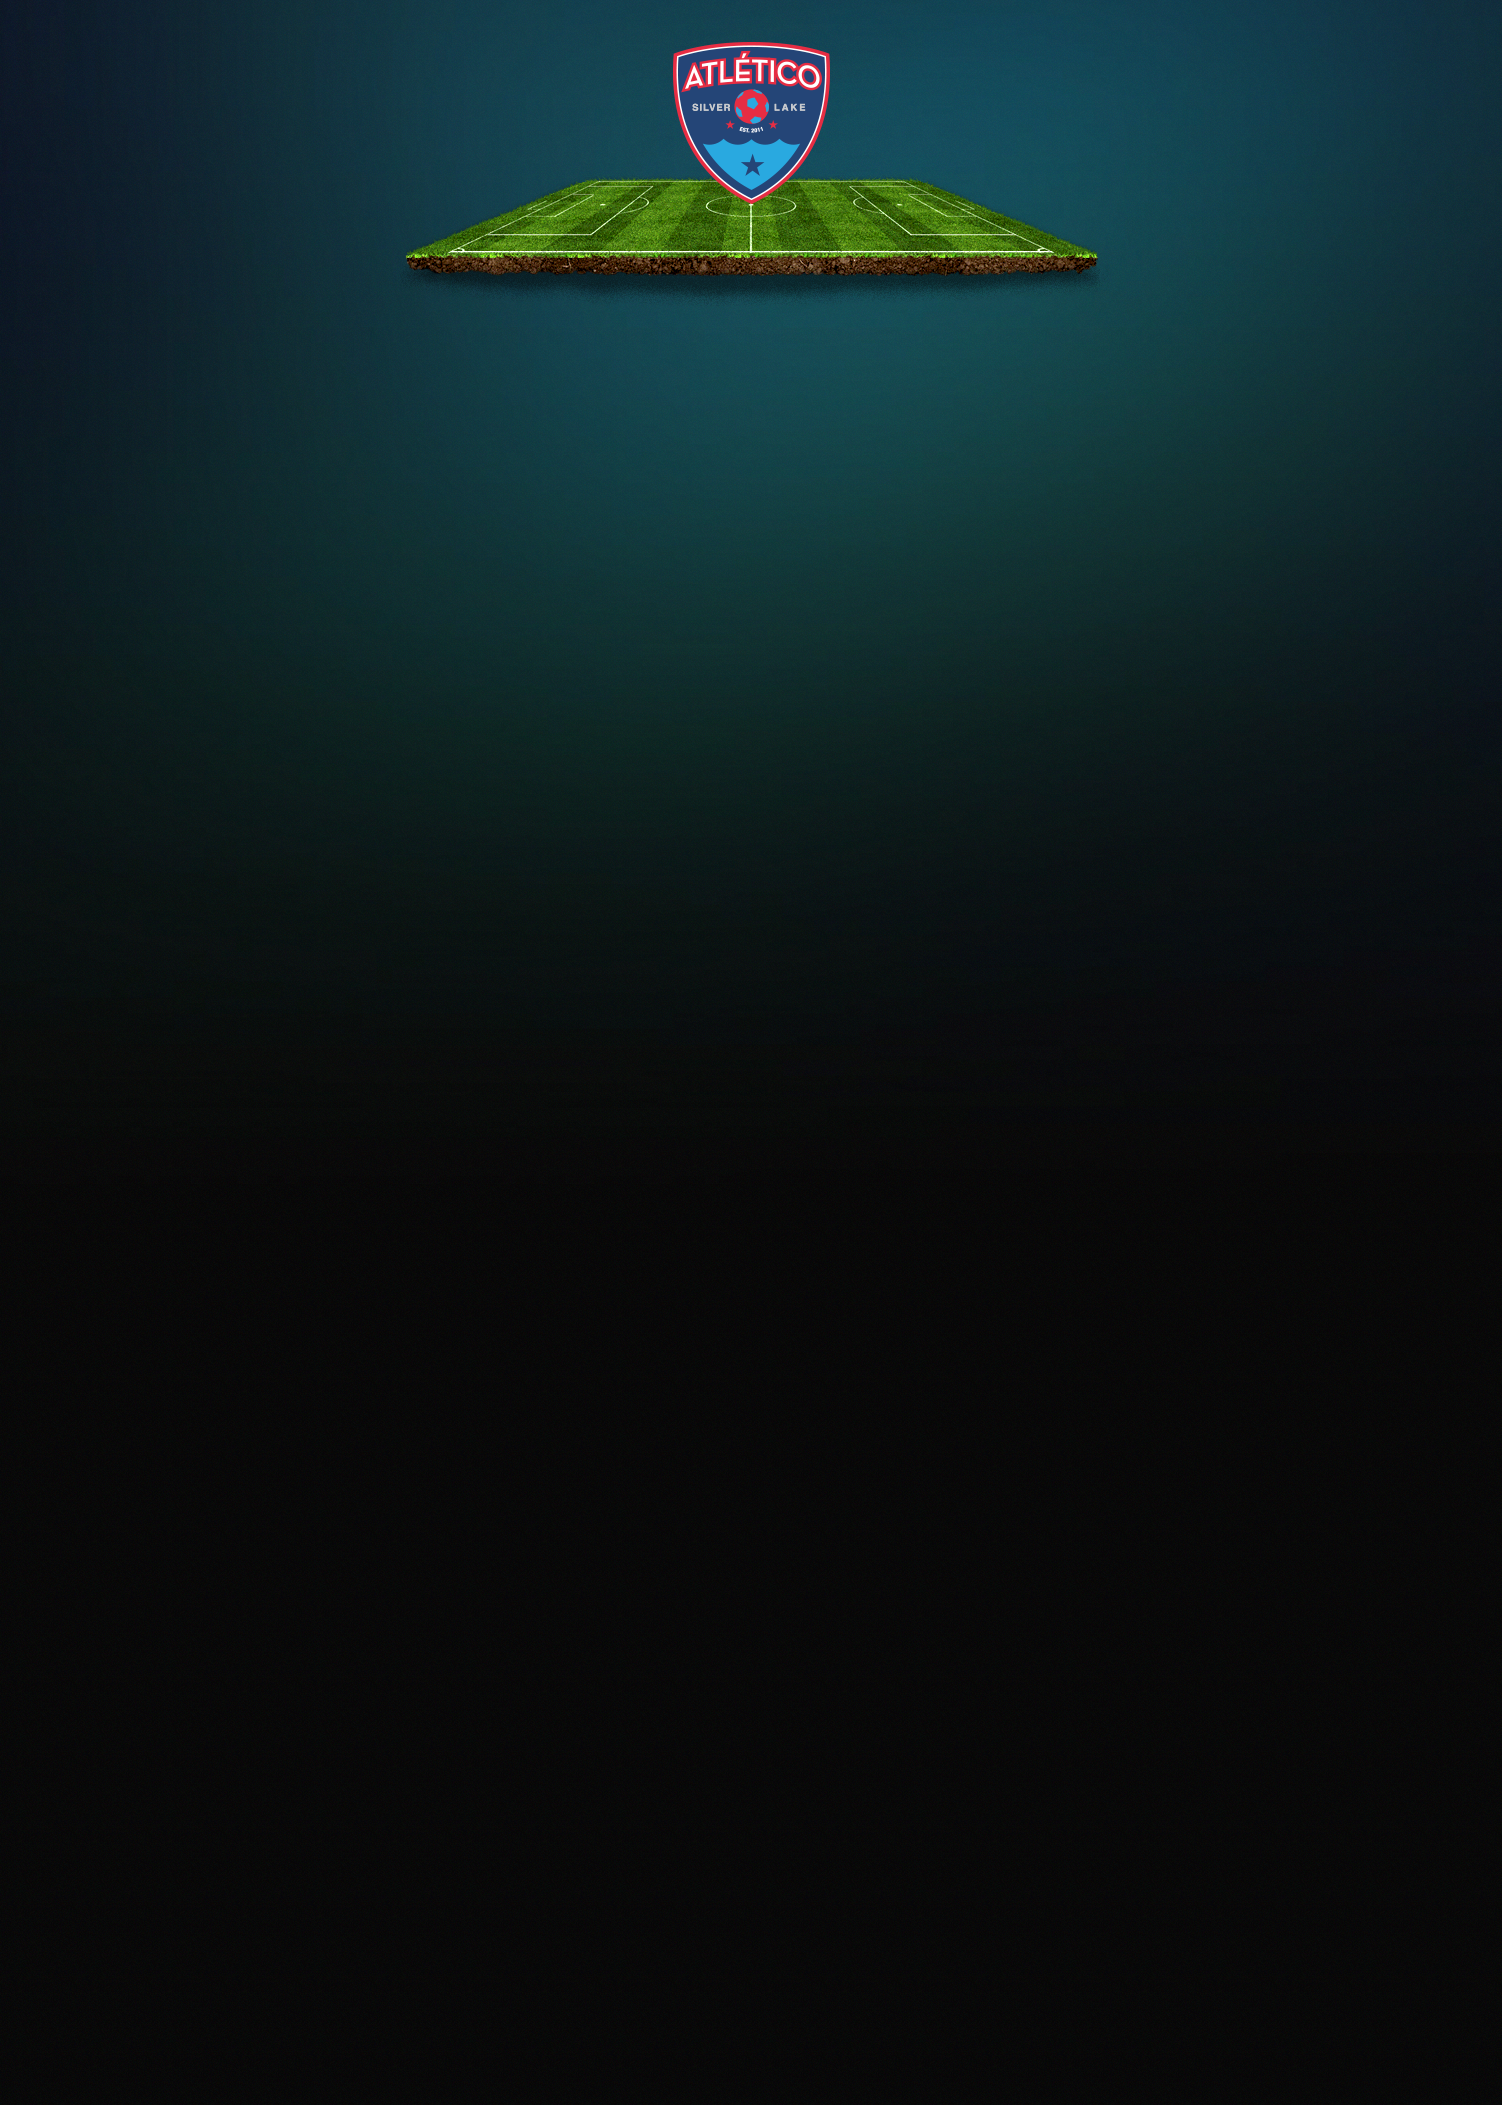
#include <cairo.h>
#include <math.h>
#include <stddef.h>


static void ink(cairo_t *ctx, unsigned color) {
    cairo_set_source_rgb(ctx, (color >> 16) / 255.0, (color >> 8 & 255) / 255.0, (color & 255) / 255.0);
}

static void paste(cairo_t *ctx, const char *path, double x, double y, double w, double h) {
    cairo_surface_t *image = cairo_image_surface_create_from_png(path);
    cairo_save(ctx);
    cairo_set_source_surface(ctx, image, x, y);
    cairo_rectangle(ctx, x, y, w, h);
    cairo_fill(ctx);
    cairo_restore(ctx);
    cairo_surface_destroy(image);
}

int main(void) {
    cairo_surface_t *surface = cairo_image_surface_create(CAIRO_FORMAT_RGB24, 1502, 2105);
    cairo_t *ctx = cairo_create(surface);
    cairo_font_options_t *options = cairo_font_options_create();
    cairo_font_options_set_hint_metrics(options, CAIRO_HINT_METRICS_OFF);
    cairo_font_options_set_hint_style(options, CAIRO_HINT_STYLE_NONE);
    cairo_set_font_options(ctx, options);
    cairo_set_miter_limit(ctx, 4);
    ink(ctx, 0xFFFFFF);
    cairo_paint(ctx);
    paste(ctx, "media/1.png", 0, 0, 1502, 2105);
    paste(ctx, "media/2.png", 0, 0, 1502, 2105);
    paste(ctx, "media/4.png", 400, 175, 709, 131);
    paste(ctx, "media/3.png", 673, 42, 157, 162);
    cairo_surface_write_to_png(surface, "image.png");
    cairo_font_options_destroy(options);
    cairo_destroy(ctx);
    cairo_surface_destroy(surface);
    return 0;
}
